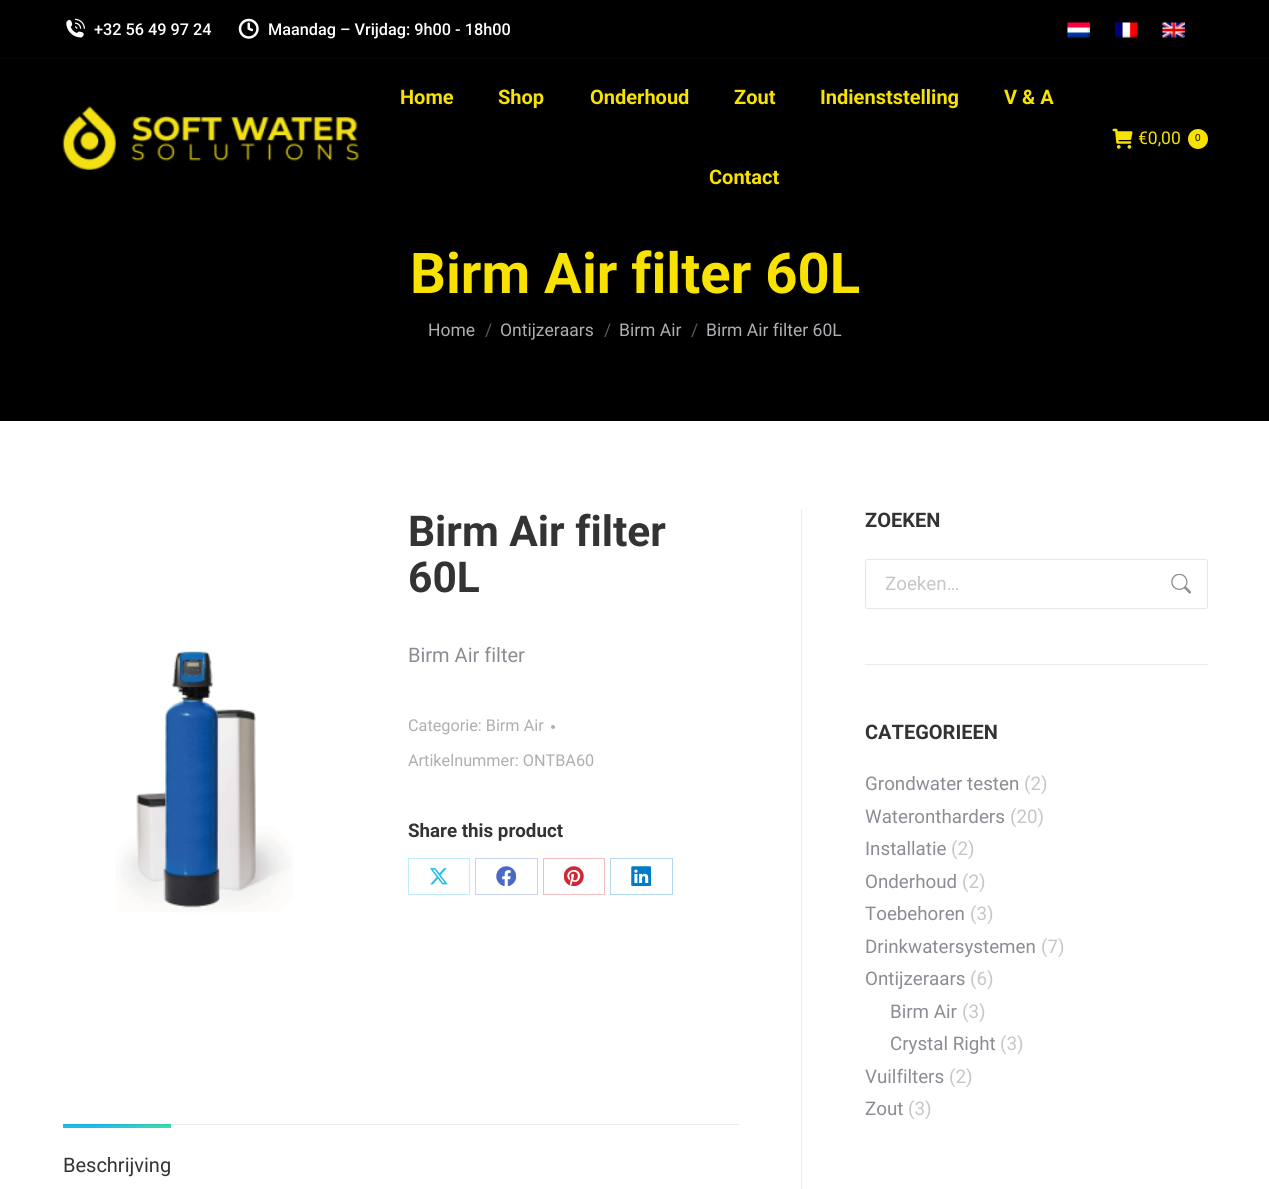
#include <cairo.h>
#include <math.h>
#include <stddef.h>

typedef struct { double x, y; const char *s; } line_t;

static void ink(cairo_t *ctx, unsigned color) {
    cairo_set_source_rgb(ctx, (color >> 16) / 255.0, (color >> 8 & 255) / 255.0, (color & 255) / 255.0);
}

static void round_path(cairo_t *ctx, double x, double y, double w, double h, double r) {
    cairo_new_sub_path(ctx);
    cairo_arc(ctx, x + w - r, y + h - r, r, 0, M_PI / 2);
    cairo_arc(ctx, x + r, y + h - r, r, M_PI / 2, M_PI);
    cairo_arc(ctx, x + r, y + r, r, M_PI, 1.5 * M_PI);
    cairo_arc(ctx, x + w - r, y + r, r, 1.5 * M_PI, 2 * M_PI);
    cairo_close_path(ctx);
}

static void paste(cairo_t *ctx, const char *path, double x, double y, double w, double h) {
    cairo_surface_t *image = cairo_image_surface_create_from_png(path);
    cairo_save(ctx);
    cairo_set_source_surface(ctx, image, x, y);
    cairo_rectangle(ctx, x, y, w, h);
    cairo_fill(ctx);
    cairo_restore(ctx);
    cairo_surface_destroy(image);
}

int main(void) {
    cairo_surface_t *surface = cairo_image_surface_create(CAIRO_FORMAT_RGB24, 1269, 1189);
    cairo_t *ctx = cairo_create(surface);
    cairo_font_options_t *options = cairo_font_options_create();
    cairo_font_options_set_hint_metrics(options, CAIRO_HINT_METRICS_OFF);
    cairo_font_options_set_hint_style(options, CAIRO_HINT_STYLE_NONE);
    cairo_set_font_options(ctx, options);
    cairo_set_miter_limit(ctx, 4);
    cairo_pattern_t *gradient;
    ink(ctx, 0xFFFFFF);
    cairo_paint(ctx);
    ink(ctx, 0xEBEBEB);
    cairo_rectangle(ctx, 171, 1124, 568, 1);
    cairo_fill(ctx);
    ink(ctx, 0x000000);
    cairo_rectangle(ctx, 0, 0, 1269, 421);
    cairo_fill(ctx);
    paste(ctx, "media/1.png", 66, 18, 19, 20);
    cairo_select_font_face(ctx, "Roboto Medium", CAIRO_FONT_SLANT_NORMAL, CAIRO_FONT_WEIGHT_NORMAL);
    cairo_set_font_size(ctx, 16.25);
    ink(ctx, 0xFFFFFF);
    cairo_move_to(ctx, 94, 35);
    cairo_show_text(ctx, "+32 56 49 97 24");
    paste(ctx, "media/2.png", 238, 18, 21, 21);
    cairo_move_to(ctx, 268, 35);
    cairo_show_text(ctx, "Maandag – Vrijdag: 9h00 - 18h00");
    paste(ctx, "media/3.png", 1067, 22, 23, 16);
    paste(ctx, "media/4.png", 1115, 22, 23, 16);
    paste(ctx, "media/5.png", 1162, 22, 23, 16);
    ink(ctx, 0x060606);
    cairo_rectangle(ctx, 0, 58, 1269, 1);
    cairo_fill(ctx);
    paste(ctx, "media/6.png", 62, 106, 297, 64);
    cairo_select_font_face(ctx, "Roboto", CAIRO_FONT_SLANT_NORMAL, CAIRO_FONT_WEIGHT_BOLD);
    cairo_set_font_size(ctx, 20);
    ink(ctx, 0xF7E201);
    {
        static const line_t items[] = {
            {400, 104, "Home"},
            {498, 104, "Shop"},
            {590, 104, "Onderhoud"},
            {734, 104, "Zout"},
            {820, 104, "Indienststelling"},
            {1004, 104, "V & A"},
            {709, 184, "Contact"},
        };
        for (size_t i = 0; i < sizeof items / sizeof *items; i++) {
            cairo_move_to(ctx, items[i].x, items[i].y);
            cairo_show_text(ctx, items[i].s);
        }
    }
    paste(ctx, "media/7.png", 1112, 128, 21, 21);
    cairo_select_font_face(ctx, "Roboto", CAIRO_FONT_SLANT_NORMAL, CAIRO_FONT_WEIGHT_NORMAL);
    cairo_set_font_size(ctx, 17.5);
    cairo_move_to(ctx, 1138, 144);
    cairo_show_text(ctx, "€0,00");
    cairo_new_path(ctx);
    cairo_arc(ctx, 1198, 139, 10, 0, 2 * M_PI);
    cairo_fill(ctx);
    cairo_select_font_face(ctx, "Liberation Sans", CAIRO_FONT_SLANT_NORMAL, CAIRO_FONT_WEIGHT_NORMAL);
    cairo_set_font_size(ctx, 10);
    ink(ctx, 0x000000);
    cairo_move_to(ctx, 1195, 141);
    cairo_show_text(ctx, "0");
    cairo_select_font_face(ctx, "Roboto", CAIRO_FONT_SLANT_NORMAL, CAIRO_FONT_WEIGHT_BOLD);
    cairo_set_font_size(ctx, 56.25);
    ink(ctx, 0xF7E201);
    cairo_move_to(ctx, 410, 293);
    cairo_show_text(ctx, "Birm Air filter 60L");
    cairo_select_font_face(ctx, "Roboto", CAIRO_FONT_SLANT_NORMAL, CAIRO_FONT_WEIGHT_NORMAL);
    cairo_set_font_size(ctx, 17.5);
    ink(ctx, 0xADAFB3);
    cairo_move_to(ctx, 428, 336);
    cairo_show_text(ctx, "Home");
    ink(ctx, 0x57585A);
    cairo_move_to(ctx, 485, 336);
    cairo_show_text(ctx, "/");
    ink(ctx, 0xADAFB3);
    cairo_move_to(ctx, 500, 336);
    cairo_show_text(ctx, "Ontijzeraars");
    ink(ctx, 0x57585A);
    cairo_move_to(ctx, 604, 336);
    cairo_show_text(ctx, "/");
    ink(ctx, 0xADAFB3);
    cairo_move_to(ctx, 619, 336);
    cairo_show_text(ctx, "Birm Air");
    ink(ctx, 0x57585A);
    cairo_move_to(ctx, 691, 336);
    cairo_show_text(ctx, "/");
    ink(ctx, 0xADAFB3);
    cairo_move_to(ctx, 706, 336);
    cairo_show_text(ctx, "Birm Air filter 60L");
    paste(ctx, "media/8.png", 116, 651, 177, 262);
    cairo_select_font_face(ctx, "Roboto", CAIRO_FONT_SLANT_NORMAL, CAIRO_FONT_WEIGHT_BOLD);
    cairo_set_font_size(ctx, 42.5);
    ink(ctx, 0x333333);
    cairo_move_to(ctx, 408, 546);
    cairo_show_text(ctx, "Birm Air filter");
    cairo_move_to(ctx, 408, 592);
    cairo_show_text(ctx, "60L");
    cairo_select_font_face(ctx, "Roboto", CAIRO_FONT_SLANT_NORMAL, CAIRO_FONT_WEIGHT_NORMAL);
    cairo_set_font_size(ctx, 20);
    ink(ctx, 0x8B8D94);
    cairo_move_to(ctx, 408, 662);
    cairo_show_text(ctx, "Birm Air filter");
    cairo_set_font_size(ctx, 16.25);
    ink(ctx, 0xADAFB3);
    cairo_move_to(ctx, 408, 731);
    cairo_show_text(ctx, "Categorie: Birm Air");
    cairo_new_path(ctx);
    cairo_arc(ctx, 553, 727, 2, 0, 2 * M_PI);
    cairo_fill(ctx);
    cairo_move_to(ctx, 408, 766);
    cairo_show_text(ctx, "Artikelnummer: ONTBA60");
    cairo_select_font_face(ctx, "Roboto", CAIRO_FONT_SLANT_NORMAL, CAIRO_FONT_WEIGHT_BOLD);
    cairo_set_font_size(ctx, 18.75);
    ink(ctx, 0x333333);
    cairo_move_to(ctx, 408, 837);
    cairo_show_text(ctx, "Share this product");
    cairo_rectangle(ctx, 408.5, 858.5, 61, 36);
    ink(ctx, 0xBFECF9);
    cairo_set_line_width(ctx, 1);
    cairo_stroke(ctx);
    paste(ctx, "media/9.png", 429, 868, 19, 17);
    cairo_rectangle(ctx, 475.5, 858.5, 62, 36);
    ink(ctx, 0xC9D2EE);
    cairo_stroke(ctx);
    paste(ctx, "media/10.png", 496, 866, 20, 20);
    cairo_rectangle(ctx, 543.5, 858.5, 61, 36);
    ink(ctx, 0xF1BFC2);
    cairo_stroke(ctx);
    paste(ctx, "media/11.png", 564, 866, 20, 20);
    cairo_rectangle(ctx, 610.5, 858.5, 62, 36);
    ink(ctx, 0xB3D7EE);
    cairo_stroke(ctx);
    paste(ctx, "media/12.png", 631, 866, 20, 20);
    gradient = cairo_pattern_create_linear(89, 1098, 145, 1154);
    cairo_pattern_add_color_stop_rgba(gradient, 0.3, 0.118, 0.733, 0.941, 1);
    cairo_pattern_add_color_stop_rgba(gradient, 1, 0.224, 0.875, 0.667, 1);
    cairo_set_source(ctx, gradient);
    cairo_pattern_destroy(gradient);
    cairo_rectangle(ctx, 63, 1125, 108, 3);
    cairo_fill(ctx);
    gradient = cairo_pattern_create_linear(89, 1098, 145, 1154);
    cairo_pattern_add_color_stop_rgba(gradient, 0.3, 0.11, 0.675, 0.867, 1);
    cairo_pattern_add_color_stop_rgba(gradient, 1, 0.204, 0.804, 0.612, 1);
    cairo_set_source(ctx, gradient);
    cairo_pattern_destroy(gradient);
    cairo_rectangle(ctx, 63, 1124, 108, 1);
    cairo_fill(ctx);
    cairo_select_font_face(ctx, "Roboto", CAIRO_FONT_SLANT_NORMAL, CAIRO_FONT_WEIGHT_NORMAL);
    cairo_set_font_size(ctx, 20);
    ink(ctx, 0x333333);
    cairo_move_to(ctx, 63, 1172);
    cairo_show_text(ctx, "Beschrijving");
    ink(ctx, 0xEBEBEB);
    cairo_rectangle(ctx, 801, 509, 1, 680);
    cairo_fill(ctx);
    cairo_select_font_face(ctx, "Roboto", CAIRO_FONT_SLANT_NORMAL, CAIRO_FONT_WEIGHT_BOLD);
    ink(ctx, 0x333333);
    cairo_move_to(ctx, 865, 527);
    cairo_show_text(ctx, "ZOEKEN");
    round_path(ctx, 865.5, 559.5, 342, 49, 2);
    ink(ctx, 0xE7E7E7);
    cairo_stroke(ctx);
    cairo_select_font_face(ctx, "Roboto", CAIRO_FONT_SLANT_NORMAL, CAIRO_FONT_WEIGHT_NORMAL);
    cairo_set_font_size(ctx, 18.75);
    ink(ctx, 0xC5C6CA);
    cairo_move_to(ctx, 885, 590);
    cairo_show_text(ctx, "Zoeken…");
    paste(ctx, "media/13.png", 1171, 574, 20, 20);
    ink(ctx, 0xEBEBEB);
    cairo_rectangle(ctx, 865, 664, 343, 1);
    cairo_fill(ctx);
    cairo_select_font_face(ctx, "Roboto", CAIRO_FONT_SLANT_NORMAL, CAIRO_FONT_WEIGHT_BOLD);
    cairo_set_font_size(ctx, 20);
    ink(ctx, 0x333333);
    cairo_move_to(ctx, 865, 739);
    cairo_show_text(ctx, "CATEGORIEEN");
    cairo_select_font_face(ctx, "Roboto", CAIRO_FONT_SLANT_NORMAL, CAIRO_FONT_WEIGHT_NORMAL);
    cairo_set_font_size(ctx, 18.75);
    ink(ctx, 0x8B8D94);
    cairo_move_to(ctx, 865, 790);
    cairo_show_text(ctx, "Grondwater testen");
    ink(ctx, 0xC5C6CA);
    cairo_move_to(ctx, 1024, 790);
    cairo_show_text(ctx, "(2)");
    ink(ctx, 0x8B8D94);
    cairo_move_to(ctx, 865, 823);
    cairo_show_text(ctx, "Waterontharders");
    ink(ctx, 0xC5C6CA);
    cairo_move_to(ctx, 1010, 823);
    cairo_show_text(ctx, "(20)");
    ink(ctx, 0x8B8D94);
    cairo_move_to(ctx, 865, 855);
    cairo_show_text(ctx, "Installatie");
    ink(ctx, 0xC5C6CA);
    cairo_move_to(ctx, 951, 855);
    cairo_show_text(ctx, "(2)");
    ink(ctx, 0x8B8D94);
    cairo_move_to(ctx, 865, 888);
    cairo_show_text(ctx, "Onderhoud");
    ink(ctx, 0xC5C6CA);
    cairo_move_to(ctx, 962, 888);
    cairo_show_text(ctx, "(2)");
    ink(ctx, 0x8B8D94);
    cairo_move_to(ctx, 865, 920);
    cairo_show_text(ctx, "Toebehoren");
    ink(ctx, 0xC5C6CA);
    cairo_move_to(ctx, 970, 920);
    cairo_show_text(ctx, "(3)");
    ink(ctx, 0x8B8D94);
    cairo_move_to(ctx, 865, 953);
    cairo_show_text(ctx, "Drinkwatersystemen");
    ink(ctx, 0xC5C6CA);
    cairo_move_to(ctx, 1041, 953);
    cairo_show_text(ctx, "(7)");
    ink(ctx, 0x8B8D94);
    cairo_move_to(ctx, 865, 985);
    cairo_show_text(ctx, "Ontijzeraars");
    ink(ctx, 0xC5C6CA);
    cairo_move_to(ctx, 970, 985);
    cairo_show_text(ctx, "(6)");
    ink(ctx, 0x8B8D94);
    cairo_move_to(ctx, 890, 1018);
    cairo_show_text(ctx, "Birm Air");
    ink(ctx, 0xC5C6CA);
    cairo_move_to(ctx, 962, 1018);
    cairo_show_text(ctx, "(3)");
    ink(ctx, 0x8B8D94);
    cairo_move_to(ctx, 890, 1050);
    cairo_show_text(ctx, "Crystal Right");
    ink(ctx, 0xC5C6CA);
    cairo_move_to(ctx, 1000, 1050);
    cairo_show_text(ctx, "(3)");
    ink(ctx, 0x8B8D94);
    cairo_move_to(ctx, 865, 1083);
    cairo_show_text(ctx, "Vuilfilters");
    ink(ctx, 0xC5C6CA);
    cairo_move_to(ctx, 949, 1083);
    cairo_show_text(ctx, "(2)");
    ink(ctx, 0x8B8D94);
    cairo_move_to(ctx, 865, 1115);
    cairo_show_text(ctx, "Zout");
    ink(ctx, 0xC5C6CA);
    cairo_move_to(ctx, 908, 1115);
    cairo_show_text(ctx, "(3)");
    cairo_surface_write_to_png(surface, "image.png");
    cairo_font_options_destroy(options);
    cairo_destroy(ctx);
    cairo_surface_destroy(surface);
    return 0;
}
